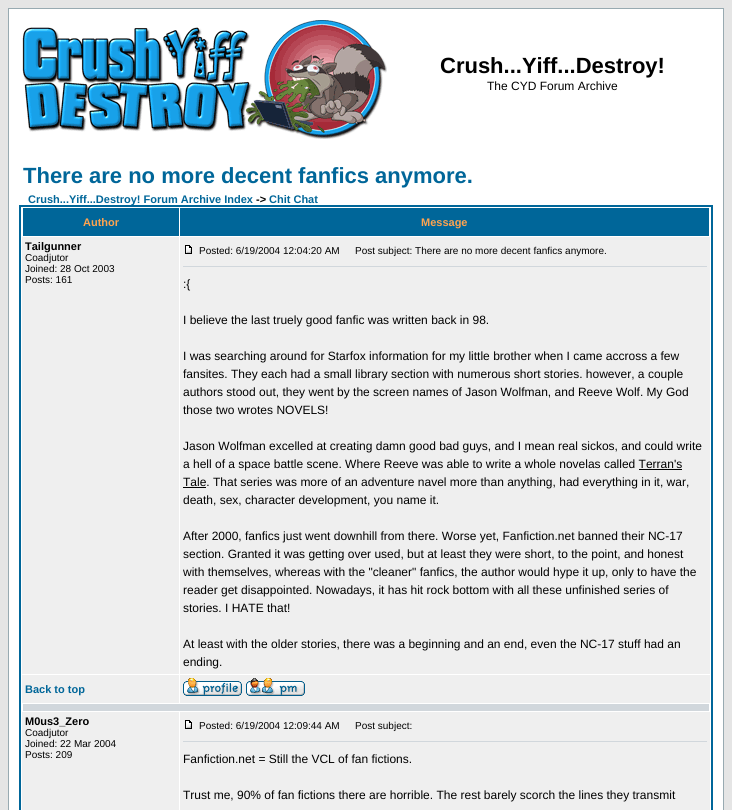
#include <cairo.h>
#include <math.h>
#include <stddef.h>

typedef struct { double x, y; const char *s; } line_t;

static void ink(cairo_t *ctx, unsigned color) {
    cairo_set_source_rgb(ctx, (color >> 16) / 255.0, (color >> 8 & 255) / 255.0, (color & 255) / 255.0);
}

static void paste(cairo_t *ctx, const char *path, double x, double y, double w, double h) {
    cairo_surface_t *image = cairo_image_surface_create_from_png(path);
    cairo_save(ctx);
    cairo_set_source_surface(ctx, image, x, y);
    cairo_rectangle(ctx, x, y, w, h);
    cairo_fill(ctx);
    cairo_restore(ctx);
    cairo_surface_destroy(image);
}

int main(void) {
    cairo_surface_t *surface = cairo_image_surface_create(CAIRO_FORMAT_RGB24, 732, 810);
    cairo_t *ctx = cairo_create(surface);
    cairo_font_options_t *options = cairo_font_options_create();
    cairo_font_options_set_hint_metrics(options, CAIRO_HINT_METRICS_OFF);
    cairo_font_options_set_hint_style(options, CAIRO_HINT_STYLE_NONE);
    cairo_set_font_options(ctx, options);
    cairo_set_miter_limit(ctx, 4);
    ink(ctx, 0xE5E5E5);
    cairo_paint(ctx);
    ink(ctx, 0xFFFFFF);
    cairo_rectangle(ctx, 8.5, 8.5, 715, 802);
    cairo_fill_preserve(ctx);
    ink(ctx, 0x98AAB1);
    cairo_set_line_width(ctx, 1);
    cairo_stroke(ctx);
    paste(ctx, "media/1.png", 22, 20, 365, 119);
    cairo_select_font_face(ctx, "Liberation Sans", CAIRO_FONT_SLANT_NORMAL, CAIRO_FONT_WEIGHT_BOLD);
    cairo_set_font_size(ctx, 22);
    ink(ctx, 0x000000);
    cairo_move_to(ctx, 440, 73);
    cairo_show_text(ctx, "Crush...Yiff...Destroy!");
    cairo_select_font_face(ctx, "Liberation Sans", CAIRO_FONT_SLANT_NORMAL, CAIRO_FONT_WEIGHT_NORMAL);
    cairo_set_font_size(ctx, 12);
    cairo_move_to(ctx, 487, 90);
    cairo_show_text(ctx, "The CYD Forum Archive");
    cairo_select_font_face(ctx, "Liberation Sans", CAIRO_FONT_SLANT_NORMAL, CAIRO_FONT_WEIGHT_BOLD);
    cairo_set_font_size(ctx, 22);
    ink(ctx, 0x006699);
    cairo_move_to(ctx, 23, 183);
    cairo_show_text(ctx, "There are no more decent fanfics anymore.");
    cairo_rectangle(ctx, 20, 206, 692, 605);
    cairo_set_line_width(ctx, 2);
    cairo_stroke(ctx);
    cairo_set_font_size(ctx, 11);
    cairo_move_to(ctx, 28, 203);
    cairo_show_text(ctx, "Crush...Yiff...Destroy! Forum Archive Index");
    ink(ctx, 0x000000);
    cairo_move_to(ctx, 256, 203);
    cairo_show_text(ctx, "->");
    ink(ctx, 0x006699);
    cairo_move_to(ctx, 269, 203);
    cairo_show_text(ctx, "Chit Chat");
    cairo_rectangle(ctx, 23, 208, 156, 28);
    cairo_fill(ctx);
    ink(ctx, 0xFFA34F);
    cairo_move_to(ctx, 83, 226);
    cairo_show_text(ctx, "Author");
    ink(ctx, 0x006699);
    cairo_rectangle(ctx, 180, 208, 529, 28);
    cairo_fill(ctx);
    ink(ctx, 0xFFA34F);
    cairo_move_to(ctx, 421, 226);
    cairo_show_text(ctx, "Message");
    ink(ctx, 0xEFEFEF);
    cairo_rectangle(ctx, 22, 237, 157, 437);
    cairo_fill(ctx);
    ink(ctx, 0x000000);
    cairo_move_to(ctx, 25, 250);
    cairo_show_text(ctx, "Tailgunner");
    cairo_select_font_face(ctx, "Liberation Sans", CAIRO_FONT_SLANT_NORMAL, CAIRO_FONT_WEIGHT_NORMAL);
    cairo_set_font_size(ctx, 10);
    {
        static const line_t items[] = {
            {25, 261, "Coadjutor"},
            {25, 272, "Joined: 28 Oct 2003"},
            {25, 283, "Posts: 161"},
        };
        for (size_t i = 0; i < sizeof items / sizeof *items; i++) {
            cairo_move_to(ctx, items[i].x, items[i].y);
            cairo_show_text(ctx, items[i].s);
        }
    }
    ink(ctx, 0xEFEFEF);
    cairo_rectangle(ctx, 180, 237, 530, 437);
    cairo_fill(ctx);
    paste(ctx, "media/2.png", 185, 245, 7, 9);
    ink(ctx, 0x000000);
    cairo_move_to(ctx, 199, 254);
    cairo_show_text(ctx, "Posted: 6/19/2004 12:04:20 AM");
    cairo_move_to(ctx, 355, 254);
    cairo_show_text(ctx, "Post subject: There are no more decent fanfics anymore.");
    ink(ctx, 0xD1D7DC);
    cairo_rectangle(ctx, 183, 266, 524, 1);
    cairo_fill(ctx);
    cairo_set_font_size(ctx, 12);
    ink(ctx, 0x000000);
    {
        static const line_t items[] = {
            {183, 288, ":{"},
            {183, 324, "I believe the last truely good fanfic was written back in 98."},
            {183, 360, "I was searching around for Starfox information for my little brother when I came accross a few"},
            {183, 378, "fansites. They each had a small library section with numerous short stories. however, a couple"},
            {183, 396, "authors stood out, they went by the screen names of Jason Wolfman, and Reeve Wolf. My God"},
            {183, 414, "those two wrotes NOVELS!"},
            {183, 450, "Jason Wolfman excelled at creating damn good bad guys, and I mean real sickos, and could write"},
            {183, 468, "a hell of a space battle scene. Where Reeve was able to write a whole novelas called Terran's"},
        };
        for (size_t i = 0; i < sizeof items / sizeof *items; i++) {
            cairo_move_to(ctx, items[i].x, items[i].y);
            cairo_show_text(ctx, items[i].s);
        }
    }
    cairo_rectangle(ctx, 639, 469, 43, 1);
    cairo_fill(ctx);
    cairo_rectangle(ctx, 183, 487, 23, 1);
    cairo_fill(ctx);
    {
        static const line_t items[] = {
            {183, 486, "Tale. That series was more of an adventure navel more than anything, had everything in it, war,"},
            {183, 504, "death, sex, character development, you name it."},
            {183, 540, "After 2000, fanfics just went downhill from there. Worse yet, Fanfiction.net banned their NC-17"},
            {183, 558, "section. Granted it was getting over used, but at least they were short, to the point, and honest"},
            {183, 576, "with themselves, whereas with the \"cleaner\" fanfics, the author would hype it up, only to have the"},
            {183, 594, "reader get disappointed. Nowadays, it has hit rock bottom with all these unfinished series of"},
            {183, 612, "stories. I HATE that!"},
            {183, 648, "At least with the older stories, there was a beginning and an end, even the NC-17 stuff had an"},
            {183, 666, "ending."},
        };
        for (size_t i = 0; i < sizeof items / sizeof *items; i++) {
            cairo_move_to(ctx, items[i].x, items[i].y);
            cairo_show_text(ctx, items[i].s);
        }
    }
    ink(ctx, 0xEFEFEF);
    cairo_rectangle(ctx, 22, 675, 157, 28);
    cairo_fill(ctx);
    cairo_select_font_face(ctx, "Liberation Sans", CAIRO_FONT_SLANT_NORMAL, CAIRO_FONT_WEIGHT_BOLD);
    cairo_set_font_size(ctx, 11);
    ink(ctx, 0x006699);
    cairo_move_to(ctx, 25, 693);
    cairo_show_text(ctx, "Back to top");
    ink(ctx, 0xEFEFEF);
    cairo_rectangle(ctx, 180, 675, 530, 28);
    cairo_fill(ctx);
    paste(ctx, "media/3.png", 183, 678, 59, 18);
    paste(ctx, "media/4.png", 246, 678, 59, 18);
    ink(ctx, 0xD1D7DC);
    cairo_rectangle(ctx, 23, 704, 686, 7);
    cairo_fill(ctx);
    ink(ctx, 0xEFEFEF);
    cairo_rectangle(ctx, 22, 712, 157, 98);
    cairo_fill(ctx);
    ink(ctx, 0x000000);
    cairo_move_to(ctx, 25, 725);
    cairo_show_text(ctx, "M0us3_Zero");
    cairo_select_font_face(ctx, "Liberation Sans", CAIRO_FONT_SLANT_NORMAL, CAIRO_FONT_WEIGHT_NORMAL);
    cairo_set_font_size(ctx, 10);
    {
        static const line_t items[] = {
            {25, 736, "Coadjutor"},
            {25, 747, "Joined: 22 Mar 2004"},
            {25, 758, "Posts: 209"},
        };
        for (size_t i = 0; i < sizeof items / sizeof *items; i++) {
            cairo_move_to(ctx, items[i].x, items[i].y);
            cairo_show_text(ctx, items[i].s);
        }
    }
    ink(ctx, 0xEFEFEF);
    cairo_rectangle(ctx, 180, 712, 530, 98);
    cairo_fill(ctx);
    paste(ctx, "media/2.png", 185, 720, 7, 9);
    ink(ctx, 0x000000);
    cairo_move_to(ctx, 199, 729);
    cairo_show_text(ctx, "Posted: 6/19/2004 12:09:44 AM");
    cairo_move_to(ctx, 355, 729);
    cairo_show_text(ctx, "Post subject:");
    ink(ctx, 0xD1D7DC);
    cairo_rectangle(ctx, 183, 741, 524, 1);
    cairo_fill(ctx);
    cairo_set_font_size(ctx, 12);
    ink(ctx, 0x000000);
    cairo_move_to(ctx, 183, 763);
    cairo_show_text(ctx, "Fanfiction.net = Still the VCL of fan fictions.");
    cairo_move_to(ctx, 183, 799);
    cairo_show_text(ctx, "Trust me, 90% of fan fictions there are horrible. The rest barely scorch the lines they transmit");
    cairo_surface_write_to_png(surface, "image.png");
    cairo_font_options_destroy(options);
    cairo_destroy(ctx);
    cairo_surface_destroy(surface);
    return 0;
}
